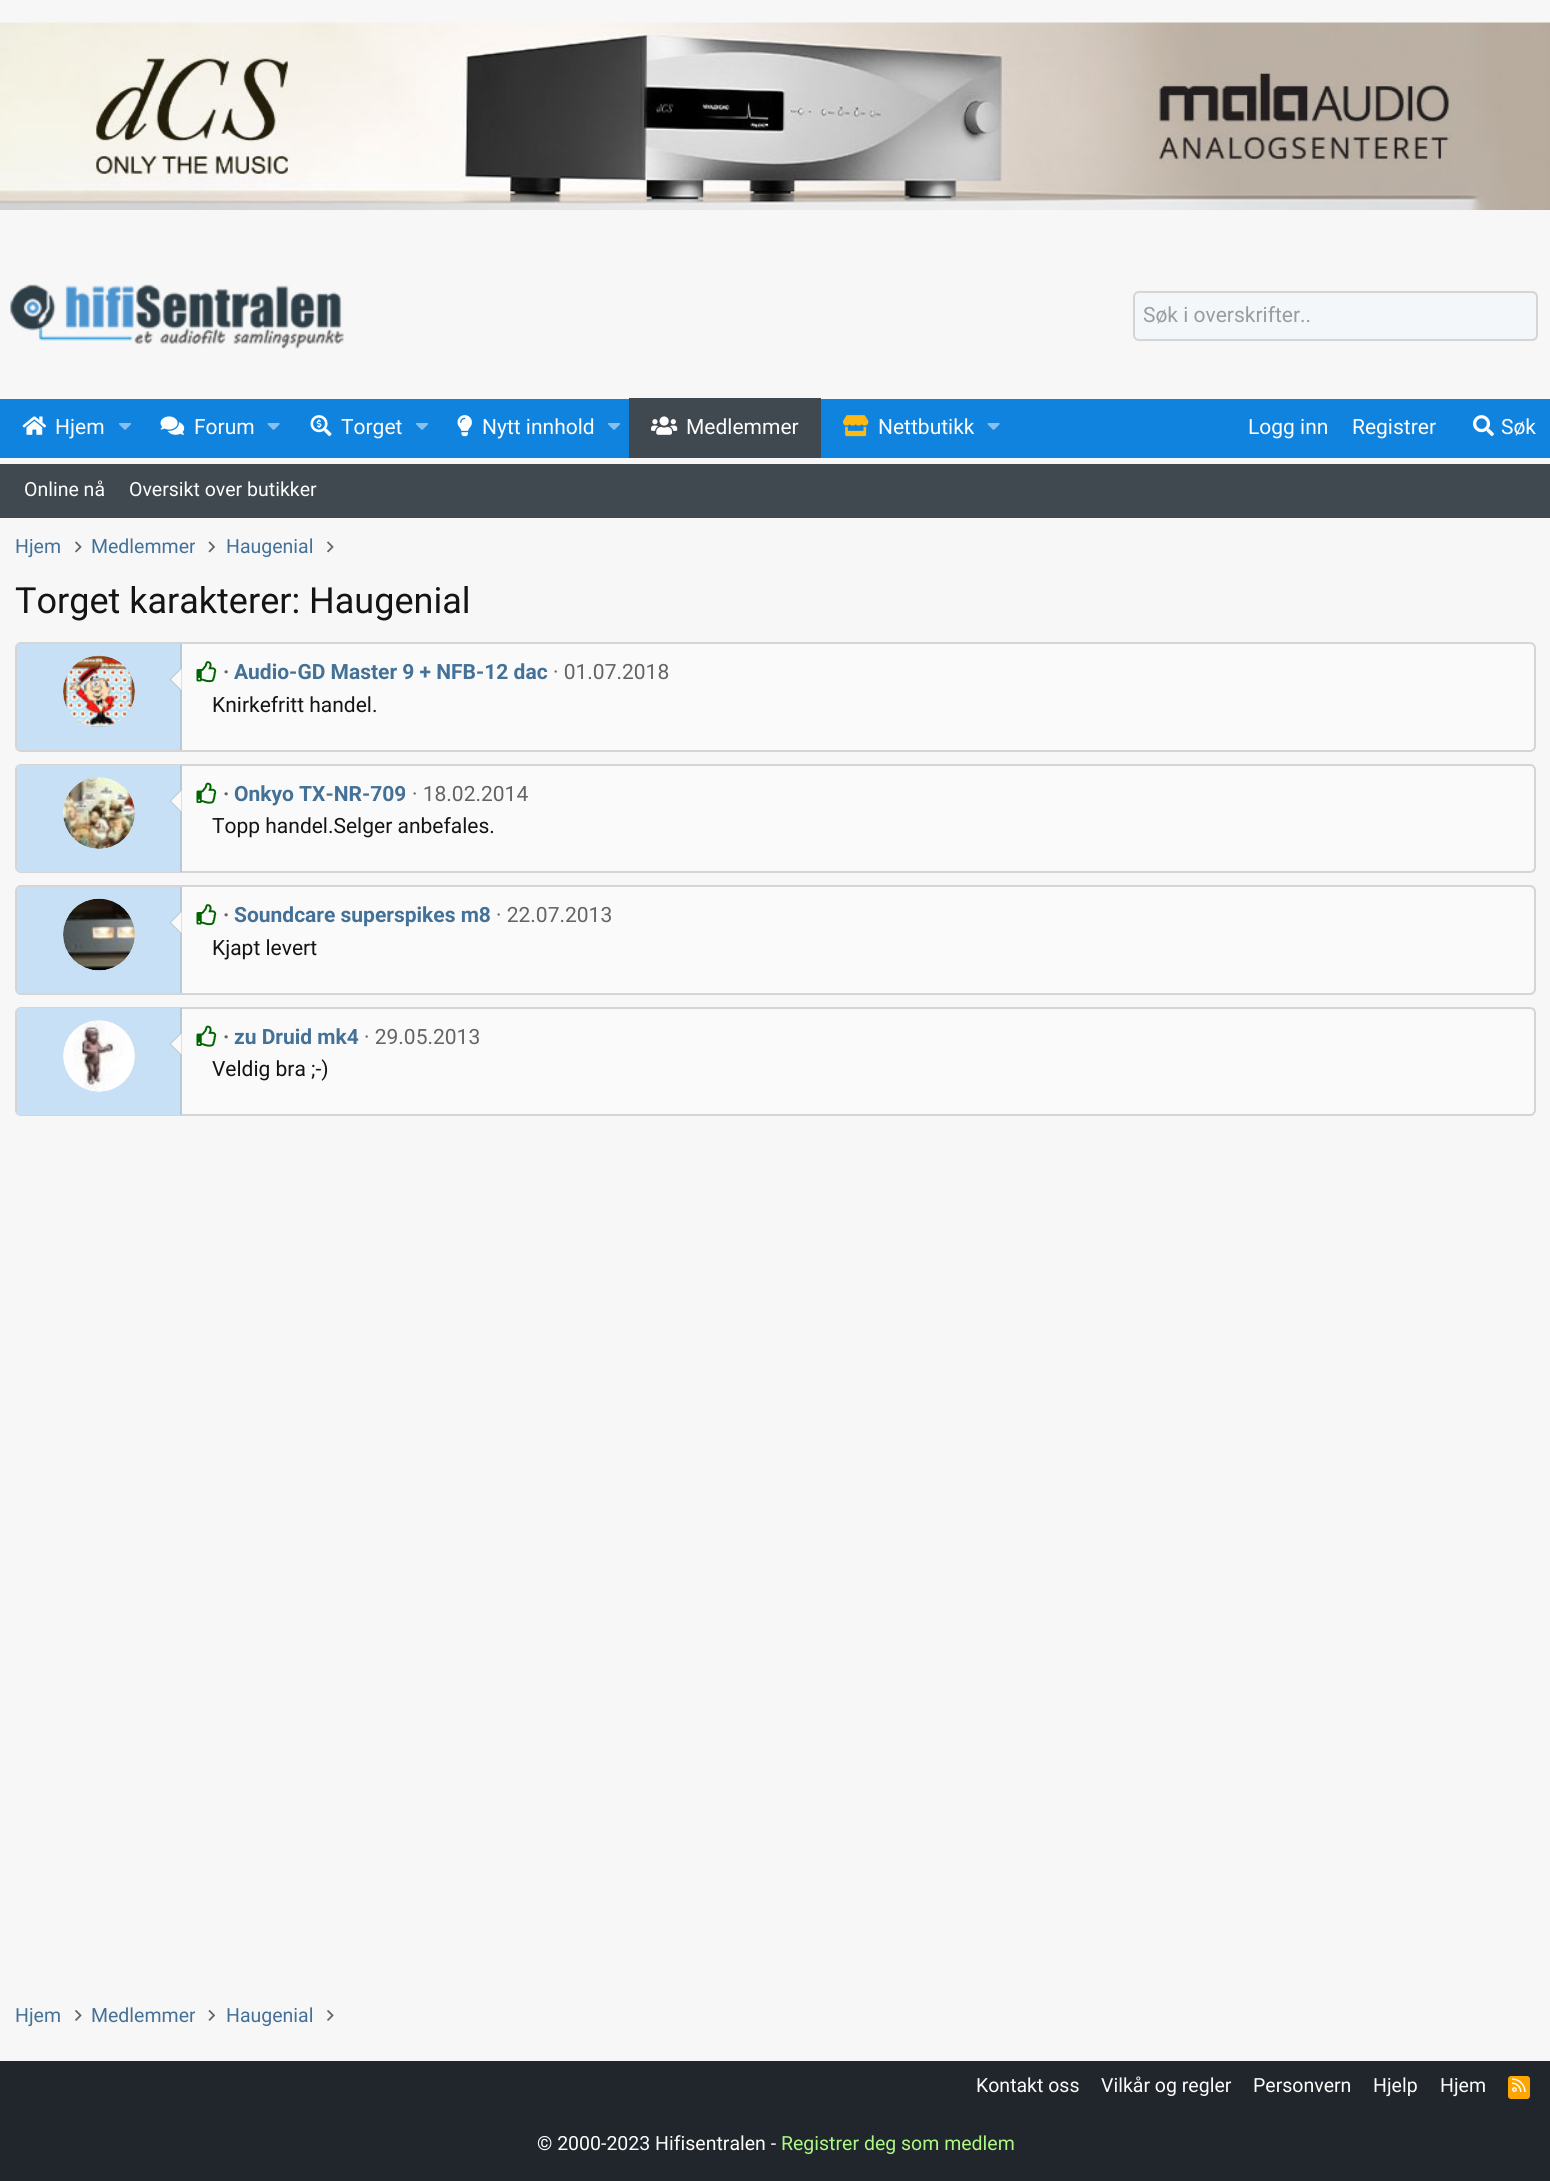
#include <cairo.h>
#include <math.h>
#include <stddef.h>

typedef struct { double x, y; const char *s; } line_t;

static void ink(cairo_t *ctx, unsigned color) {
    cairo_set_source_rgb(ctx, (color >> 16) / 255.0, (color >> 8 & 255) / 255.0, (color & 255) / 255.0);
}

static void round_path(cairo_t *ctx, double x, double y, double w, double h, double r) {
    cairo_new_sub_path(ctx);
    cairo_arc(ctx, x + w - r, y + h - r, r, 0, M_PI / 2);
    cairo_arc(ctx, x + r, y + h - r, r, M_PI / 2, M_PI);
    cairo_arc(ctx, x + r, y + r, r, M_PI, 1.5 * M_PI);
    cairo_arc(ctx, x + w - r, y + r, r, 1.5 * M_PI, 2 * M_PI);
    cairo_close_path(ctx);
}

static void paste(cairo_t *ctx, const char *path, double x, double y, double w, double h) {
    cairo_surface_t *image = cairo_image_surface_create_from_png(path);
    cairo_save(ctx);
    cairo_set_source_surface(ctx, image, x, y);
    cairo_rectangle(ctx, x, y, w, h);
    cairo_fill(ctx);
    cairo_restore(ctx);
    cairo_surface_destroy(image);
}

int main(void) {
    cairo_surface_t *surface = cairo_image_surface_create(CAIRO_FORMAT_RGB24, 1550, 2181);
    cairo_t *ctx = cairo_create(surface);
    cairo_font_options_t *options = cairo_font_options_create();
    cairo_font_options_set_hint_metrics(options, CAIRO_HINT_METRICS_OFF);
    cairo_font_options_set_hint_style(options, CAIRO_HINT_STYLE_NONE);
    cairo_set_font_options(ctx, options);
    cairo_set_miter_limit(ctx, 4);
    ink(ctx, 0xF7F7F7);
    cairo_paint(ctx);
    paste(ctx, "media/1.png", 0, 22, 1550, 188);
    paste(ctx, "media/2.png", 10, 284, 334, 65);
    ink(ctx, 0xF3F7FA);
    round_path(ctx, 1134, 292, 403, 48, 5);
    cairo_fill_preserve(ctx);
    ink(ctx, 0xD5D5D5);
    cairo_stroke(ctx);
    cairo_select_font_face(ctx, "Roboto", CAIRO_FONT_SLANT_NORMAL, CAIRO_FONT_WEIGHT_NORMAL);
    cairo_set_font_size(ctx, 21);
    ink(ctx, 0x9A9C9E);
    cairo_move_to(ctx, 1143, 322);
    cairo_show_text(ctx, "Søk i overskrifter..");
    ink(ctx, 0x1083DF);
    cairo_rectangle(ctx, 0, 399, 1550, 59);
    cairo_fill(ctx);
    paste(ctx, "media/3.png", 22, 416, 25, 19);
    ink(ctx, 0xFDFDFD);
    cairo_move_to(ctx, 55, 434);
    cairo_show_text(ctx, "Hjem");
    paste(ctx, "media/4.png", 119, 423, 13, 7);
    paste(ctx, "media/5.png", 160, 416, 25, 19);
    cairo_move_to(ctx, 194, 434);
    cairo_show_text(ctx, "Forum");
    paste(ctx, "media/6.png", 267, 423, 13, 7);
    paste(ctx, "media/7.png", 310, 415, 22, 22);
    cairo_move_to(ctx, 341, 434);
    cairo_show_text(ctx, "Torget");
    paste(ctx, "media/4.png", 416, 423, 13, 7);
    paste(ctx, "media/8.png", 457, 415, 15, 22);
    cairo_move_to(ctx, 482, 434);
    cairo_show_text(ctx, "Nytt innhold");
    paste(ctx, "media/4.png", 608, 423, 13, 7);
    ink(ctx, 0x3F494F);
    cairo_rectangle(ctx, 629, 398, 192, 60);
    cairo_fill(ctx);
    paste(ctx, "media/9.png", 651, 416, 27, 19);
    ink(ctx, 0xFDFDFD);
    cairo_move_to(ctx, 686, 434);
    cairo_show_text(ctx, "Medlemmer");
    paste(ctx, "media/10.png", 843, 415, 26, 22);
    cairo_move_to(ctx, 878, 434);
    cairo_show_text(ctx, "Nettbutikk");
    paste(ctx, "media/6.png", 987, 423, 13, 7);
    cairo_move_to(ctx, 1248, 434);
    cairo_show_text(ctx, "Logg inn");
    cairo_move_to(ctx, 1352, 434);
    cairo_show_text(ctx, "Registrer");
    paste(ctx, "media/11.png", 1473, 415, 21, 22);
    cairo_move_to(ctx, 1501, 434);
    cairo_show_text(ctx, "Søk");
    ink(ctx, 0x3F494F);
    cairo_rectangle(ctx, 0, 464, 1550, 54);
    cairo_fill(ctx);
    cairo_set_font_size(ctx, 19.5);
    ink(ctx, 0xFDFDFD);
    cairo_move_to(ctx, 24, 496);
    cairo_show_text(ctx, "Online nå");
    cairo_move_to(ctx, 129, 496);
    cairo_show_text(ctx, "Oversikt over butikker");
    ink(ctx, 0x437197);
    cairo_move_to(ctx, 15, 553);
    cairo_show_text(ctx, "Hjem");
    paste(ctx, "media/12.png", 75, 541, 7, 12);
    cairo_save(ctx);
    cairo_rectangle(ctx, 92, 533, 103, 28);
    cairo_clip(ctx);
    cairo_move_to(ctx, 91, 553);
    cairo_show_text(ctx, "Medlemmer");
    cairo_restore(ctx);
    paste(ctx, "media/13.png", 208, 541, 7, 12);
    cairo_move_to(ctx, 226, 553);
    cairo_show_text(ctx, "Haugenial");
    paste(ctx, "media/12.png", 327, 541, 7, 12);
    cairo_set_font_size(ctx, 36);
    ink(ctx, 0x141414);
    cairo_move_to(ctx, 15, 613);
    cairo_show_text(ctx, "Torget karakterer: Haugenial");
    ink(ctx, 0xFAFAFA);
    round_path(ctx, 16, 643, 1519, 108, 5);
    cairo_fill_preserve(ctx);
    ink(ctx, 0xD5D5D5);
    cairo_stroke(ctx);
    ink(ctx, 0xC7E0F5);
    cairo_rectangle(ctx, 17, 644, 163, 106);
    cairo_fill(ctx);
    ink(ctx, 0xB8CAD7);
    cairo_rectangle(ctx, 180, 644, 2, 106);
    cairo_fill(ctx);
    paste(ctx, "media/14.png", 63, 655, 72, 73);
    cairo_new_path(ctx);
    cairo_move_to(ctx, 181.5, 667.5);
    cairo_line_to(ctx, 181.5, 691.5);
    cairo_line_to(ctx, 169.5, 679.5);
    cairo_close_path(ctx);
    cairo_fill(ctx);
    ink(ctx, 0xFAFAFA);
    cairo_new_path(ctx);
    cairo_move_to(ctx, 181.5, 669);
    cairo_line_to(ctx, 181.5, 690);
    cairo_line_to(ctx, 171, 679.5);
    cairo_close_path(ctx);
    cairo_fill(ctx);
    paste(ctx, "media/15.png", 196, 661, 21, 22);
    cairo_select_font_face(ctx, "Roboto", CAIRO_FONT_SLANT_NORMAL, CAIRO_FONT_WEIGHT_BOLD);
    cairo_set_font_size(ctx, 21);
    ink(ctx, 0x646464);
    cairo_move_to(ctx, 223, 679);
    cairo_show_text(ctx, "·");
    ink(ctx, 0x437197);
    cairo_move_to(ctx, 234, 679);
    cairo_show_text(ctx, "Audio-GD Master 9 + NFB-12 dac");
    cairo_select_font_face(ctx, "Roboto", CAIRO_FONT_SLANT_NORMAL, CAIRO_FONT_WEIGHT_NORMAL);
    ink(ctx, 0x646464);
    cairo_move_to(ctx, 553, 679);
    cairo_show_text(ctx, "· 01.07.2018");
    ink(ctx, 0x141414);
    cairo_move_to(ctx, 212, 712);
    cairo_show_text(ctx, "Knirkefritt handel.");
    ink(ctx, 0xFAFAFA);
    round_path(ctx, 16, 765, 1519, 107, 5);
    cairo_fill_preserve(ctx);
    ink(ctx, 0xD5D5D5);
    cairo_stroke(ctx);
    ink(ctx, 0xC7E0F5);
    cairo_rectangle(ctx, 17, 765, 163, 107);
    cairo_fill(ctx);
    ink(ctx, 0xB8CAD7);
    cairo_rectangle(ctx, 180, 765, 2, 107);
    cairo_fill(ctx);
    paste(ctx, "media/16.png", 63, 777, 72, 72);
    cairo_new_path(ctx);
    cairo_move_to(ctx, 181.5, 789);
    cairo_line_to(ctx, 181.5, 813);
    cairo_line_to(ctx, 169.5, 801);
    cairo_close_path(ctx);
    cairo_fill(ctx);
    ink(ctx, 0xFAFAFA);
    cairo_new_path(ctx);
    cairo_move_to(ctx, 181.5, 790.5);
    cairo_line_to(ctx, 181.5, 811.5);
    cairo_line_to(ctx, 171, 801);
    cairo_close_path(ctx);
    cairo_fill(ctx);
    paste(ctx, "media/17.png", 196, 782, 21, 22);
    cairo_select_font_face(ctx, "Roboto", CAIRO_FONT_SLANT_NORMAL, CAIRO_FONT_WEIGHT_BOLD);
    ink(ctx, 0x646464);
    cairo_move_to(ctx, 223, 801);
    cairo_show_text(ctx, "·");
    ink(ctx, 0x437197);
    cairo_move_to(ctx, 234, 801);
    cairo_show_text(ctx, "Onkyo TX-NR-709");
    cairo_select_font_face(ctx, "Roboto", CAIRO_FONT_SLANT_NORMAL, CAIRO_FONT_WEIGHT_NORMAL);
    ink(ctx, 0x646464);
    cairo_move_to(ctx, 412, 801);
    cairo_show_text(ctx, "· 18.02.2014");
    ink(ctx, 0x141414);
    cairo_move_to(ctx, 212, 833);
    cairo_show_text(ctx, "Topp handel.Selger anbefales.");
    ink(ctx, 0xFAFAFA);
    round_path(ctx, 16, 886, 1519, 108, 5);
    cairo_fill_preserve(ctx);
    ink(ctx, 0xD5D5D5);
    cairo_stroke(ctx);
    ink(ctx, 0xC7E0F5);
    cairo_rectangle(ctx, 17, 887, 163, 106);
    cairo_fill(ctx);
    ink(ctx, 0xB8CAD7);
    cairo_rectangle(ctx, 180, 887, 2, 106);
    cairo_fill(ctx);
    paste(ctx, "media/18.png", 63, 898, 72, 73);
    cairo_new_path(ctx);
    cairo_move_to(ctx, 181.5, 910.5);
    cairo_line_to(ctx, 181.5, 934.5);
    cairo_line_to(ctx, 169.5, 922.5);
    cairo_close_path(ctx);
    cairo_fill(ctx);
    ink(ctx, 0xFAFAFA);
    cairo_new_path(ctx);
    cairo_move_to(ctx, 181.5, 912);
    cairo_line_to(ctx, 181.5, 933);
    cairo_line_to(ctx, 171, 922.5);
    cairo_close_path(ctx);
    cairo_fill(ctx);
    paste(ctx, "media/15.png", 196, 904, 21, 22);
    cairo_select_font_face(ctx, "Roboto", CAIRO_FONT_SLANT_NORMAL, CAIRO_FONT_WEIGHT_BOLD);
    ink(ctx, 0x646464);
    cairo_move_to(ctx, 223, 922);
    cairo_show_text(ctx, "·");
    ink(ctx, 0x437197);
    cairo_move_to(ctx, 234, 922);
    cairo_show_text(ctx, "Soundcare superspikes m8");
    cairo_select_font_face(ctx, "Roboto", CAIRO_FONT_SLANT_NORMAL, CAIRO_FONT_WEIGHT_NORMAL);
    ink(ctx, 0x646464);
    cairo_move_to(ctx, 496, 922);
    cairo_show_text(ctx, "· 22.07.2013");
    ink(ctx, 0x141414);
    cairo_move_to(ctx, 212, 955);
    cairo_show_text(ctx, "Kjapt levert");
    ink(ctx, 0xFAFAFA);
    round_path(ctx, 16, 1008, 1519, 107, 5);
    cairo_fill_preserve(ctx);
    ink(ctx, 0xD5D5D5);
    cairo_stroke(ctx);
    ink(ctx, 0xC7E0F5);
    cairo_rectangle(ctx, 17, 1008, 163, 107);
    cairo_fill(ctx);
    ink(ctx, 0xB8CAD7);
    cairo_rectangle(ctx, 180, 1008, 2, 107);
    cairo_fill(ctx);
    paste(ctx, "media/19.png", 63, 1020, 72, 72);
    cairo_new_path(ctx);
    cairo_move_to(ctx, 181.5, 1032);
    cairo_line_to(ctx, 181.5, 1056);
    cairo_line_to(ctx, 169.5, 1044);
    cairo_close_path(ctx);
    cairo_fill(ctx);
    ink(ctx, 0xFAFAFA);
    cairo_new_path(ctx);
    cairo_move_to(ctx, 181.5, 1033.5);
    cairo_line_to(ctx, 181.5, 1054.5);
    cairo_line_to(ctx, 171, 1044);
    cairo_close_path(ctx);
    cairo_fill(ctx);
    paste(ctx, "media/17.png", 196, 1025, 21, 22);
    cairo_select_font_face(ctx, "Roboto", CAIRO_FONT_SLANT_NORMAL, CAIRO_FONT_WEIGHT_BOLD);
    ink(ctx, 0x646464);
    cairo_move_to(ctx, 223, 1044);
    cairo_show_text(ctx, "·");
    ink(ctx, 0x437197);
    cairo_move_to(ctx, 234, 1044);
    cairo_show_text(ctx, "zu Druid mk4");
    cairo_select_font_face(ctx, "Roboto", CAIRO_FONT_SLANT_NORMAL, CAIRO_FONT_WEIGHT_NORMAL);
    ink(ctx, 0x646464);
    cairo_move_to(ctx, 364, 1044);
    cairo_show_text(ctx, "· 29.05.2013");
    ink(ctx, 0x141414);
    cairo_move_to(ctx, 212, 1076);
    cairo_show_text(ctx, "Veldig bra ;-)");
    cairo_set_font_size(ctx, 19.5);
    ink(ctx, 0x437197);
    cairo_move_to(ctx, 15, 2022);
    cairo_show_text(ctx, "Hjem");
    paste(ctx, "media/20.png", 75, 2010, 7, 11);
    cairo_save(ctx);
    cairo_rectangle(ctx, 92, 2001, 103, 30);
    cairo_clip(ctx);
    cairo_move_to(ctx, 91, 2022);
    cairo_show_text(ctx, "Medlemmer");
    cairo_restore(ctx);
    paste(ctx, "media/21.png", 208, 2010, 8, 11);
    cairo_move_to(ctx, 226, 2022);
    cairo_show_text(ctx, "Haugenial");
    paste(ctx, "media/20.png", 327, 2010, 7, 11);
    ink(ctx, 0x20262B);
    cairo_rectangle(ctx, 0, 2061, 1550, 120);
    cairo_fill(ctx);
    ink(ctx, 0xFDFDFD);
    {
        static const line_t items[] = {
            {976, 2092, "Kontakt oss"},
            {1101, 2092, "Vilkår og regler"},
            {1253, 2092, "Personvern"},
            {1373, 2092, "Hjelp"},
            {1440, 2092, "Hjem"},
        };
        for (size_t i = 0; i < sizeof items / sizeof *items; i++) {
            cairo_move_to(ctx, items[i].x, items[i].y);
            cairo_show_text(ctx, items[i].s);
        }
    }
    ink(ctx, 0xFFA500);
    round_path(ctx, 1508, 2076, 22, 23, 3);
    cairo_fill(ctx);
    paste(ctx, "media/22.png", 1512, 2078, 14, 14);
    ink(ctx, 0xFDFDFD);
    cairo_move_to(ctx, 537, 2150);
    cairo_show_text(ctx, "© 2000-2023 Hifisentralen -");
    ink(ctx, 0xACF883);
    cairo_move_to(ctx, 781, 2150);
    cairo_show_text(ctx, "Registrer deg som medlem");
    cairo_surface_write_to_png(surface, "image.png");
    cairo_font_options_destroy(options);
    cairo_destroy(ctx);
    cairo_surface_destroy(surface);
    return 0;
}
